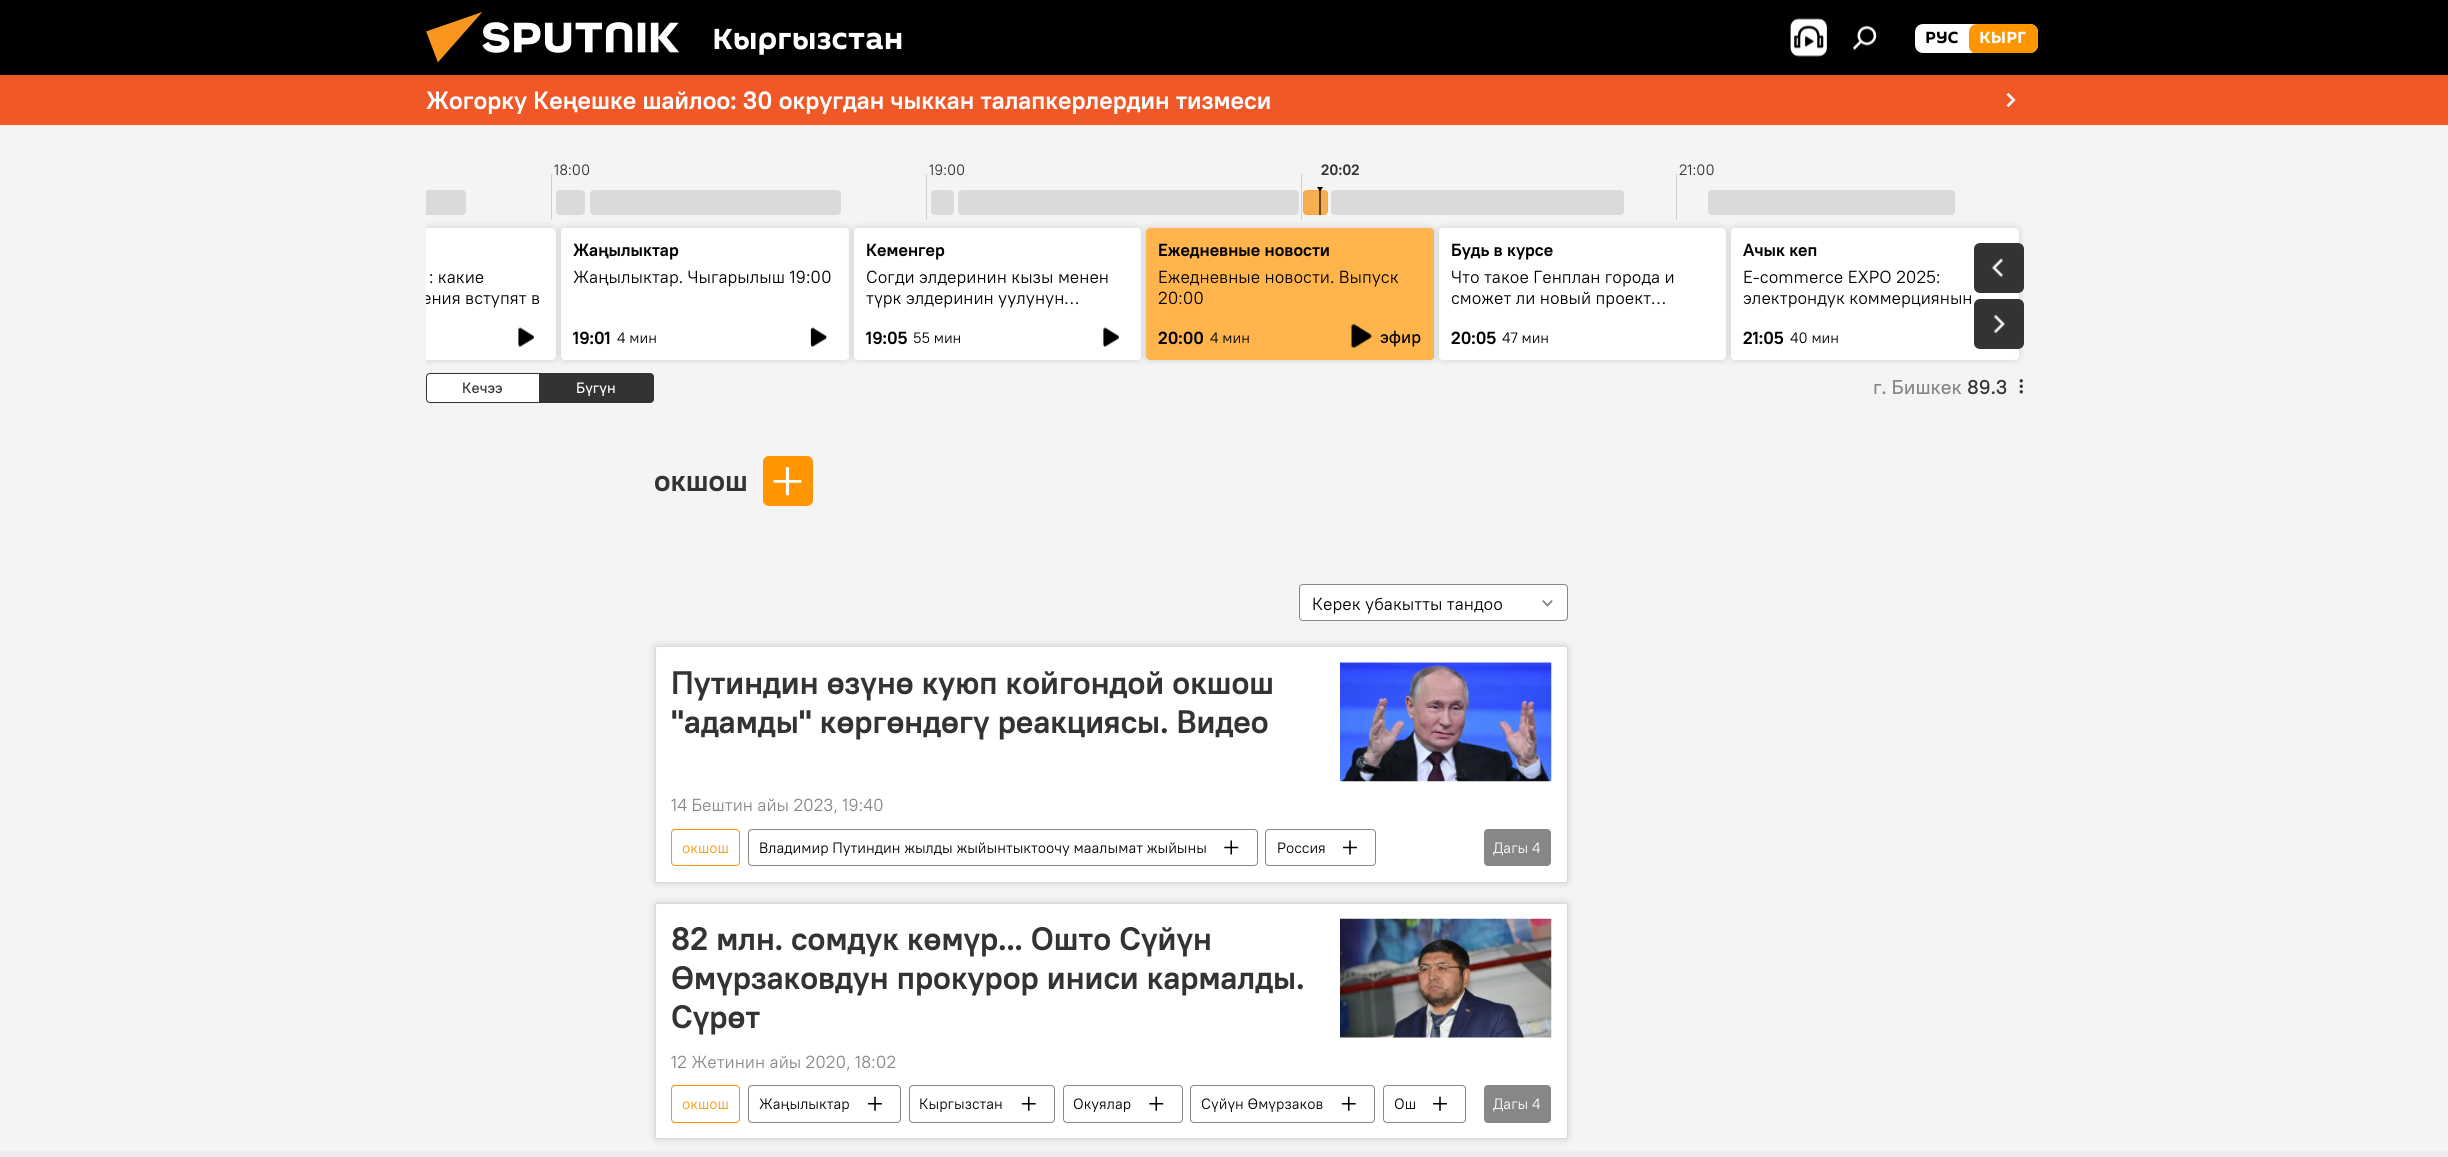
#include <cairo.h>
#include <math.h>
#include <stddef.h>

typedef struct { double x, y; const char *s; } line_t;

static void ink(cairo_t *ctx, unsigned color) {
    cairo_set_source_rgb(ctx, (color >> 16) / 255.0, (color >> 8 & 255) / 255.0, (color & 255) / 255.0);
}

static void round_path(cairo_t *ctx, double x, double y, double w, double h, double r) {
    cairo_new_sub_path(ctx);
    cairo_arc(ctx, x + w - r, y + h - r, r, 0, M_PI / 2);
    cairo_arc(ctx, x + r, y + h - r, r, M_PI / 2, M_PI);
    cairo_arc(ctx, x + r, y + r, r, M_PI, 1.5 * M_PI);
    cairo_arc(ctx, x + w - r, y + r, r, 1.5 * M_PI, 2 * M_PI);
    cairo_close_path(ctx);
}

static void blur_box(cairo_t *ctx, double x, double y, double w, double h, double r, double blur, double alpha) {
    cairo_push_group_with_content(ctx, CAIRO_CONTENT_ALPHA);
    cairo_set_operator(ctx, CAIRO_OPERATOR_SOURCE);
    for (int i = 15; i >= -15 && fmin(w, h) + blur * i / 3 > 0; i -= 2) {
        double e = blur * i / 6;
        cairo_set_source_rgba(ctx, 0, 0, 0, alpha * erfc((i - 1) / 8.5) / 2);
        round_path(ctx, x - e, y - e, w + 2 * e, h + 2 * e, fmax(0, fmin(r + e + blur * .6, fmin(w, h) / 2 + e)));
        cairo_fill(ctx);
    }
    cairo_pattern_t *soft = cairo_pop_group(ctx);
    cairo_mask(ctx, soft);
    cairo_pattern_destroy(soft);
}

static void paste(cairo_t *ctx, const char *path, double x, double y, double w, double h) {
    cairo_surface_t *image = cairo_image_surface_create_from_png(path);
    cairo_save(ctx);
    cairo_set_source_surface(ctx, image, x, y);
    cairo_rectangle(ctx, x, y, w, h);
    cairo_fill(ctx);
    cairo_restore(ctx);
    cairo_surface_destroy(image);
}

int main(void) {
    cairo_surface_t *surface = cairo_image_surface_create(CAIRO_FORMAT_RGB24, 2448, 1157);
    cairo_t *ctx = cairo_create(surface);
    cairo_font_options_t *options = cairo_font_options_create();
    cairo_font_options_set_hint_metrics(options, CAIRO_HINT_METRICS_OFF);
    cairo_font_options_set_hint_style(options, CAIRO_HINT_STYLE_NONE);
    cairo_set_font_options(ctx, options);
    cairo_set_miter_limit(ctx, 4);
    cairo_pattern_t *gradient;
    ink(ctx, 0xF4F4F4);
    cairo_paint(ctx);
    ink(ctx, 0x000000);
    cairo_rectangle(ctx, 0, 0, 2448, 75);
    cairo_fill(ctx);
    paste(ctx, "media/1.png", 426, 12, 253, 51);
    cairo_select_font_face(ctx, "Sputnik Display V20", CAIRO_FONT_SLANT_NORMAL, CAIRO_FONT_WEIGHT_BOLD);
    cairo_set_font_size(ctx, 28.75);
    ink(ctx, 0xFFFFFF);
    cairo_move_to(ctx, 712, 49);
    cairo_show_text(ctx, "Кыргызстан");
    paste(ctx, "media/2.png", 1790, 18, 37, 39);
    paste(ctx, "media/3.png", 1853, 25, 24, 26);
    round_path(ctx, 1915, 24, 123, 29, 8);
    cairo_fill(ctx);
    cairo_set_font_size(ctx, 16);
    ink(ctx, 0x000000);
    cairo_move_to(ctx, 1925, 43);
    cairo_show_text(ctx, "РУС");
    cairo_save(ctx);
    round_path(ctx, 1915, 24, 123, 29, 8);
    cairo_clip(ctx);
    ink(ctx, 0xFF9600);
    round_path(ctx, 1969, 24, 69, 30, 8);
    cairo_fill(ctx);
    cairo_restore(ctx);
    ink(ctx, 0xFFFFFF);
    cairo_move_to(ctx, 1979, 43);
    cairo_show_text(ctx, "КЫРГ");
    ink(ctx, 0xF05828);
    cairo_rectangle(ctx, 0, 75, 2448, 50);
    cairo_fill(ctx);
    cairo_select_font_face(ctx, "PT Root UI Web", CAIRO_FONT_SLANT_NORMAL, CAIRO_FONT_WEIGHT_BOLD);
    cairo_set_font_size(ctx, 25);
    ink(ctx, 0xFFFFFF);
    cairo_move_to(ctx, 426, 109);
    cairo_show_text(ctx, "Жогорку Кеңешке шайлоо: 30 округдан чыккан талапкерлердин тизмеси");
    paste(ctx, "media/4.png", 2006, 93, 10, 14);
    cairo_select_font_face(ctx, "PT Root UI Web", CAIRO_FONT_SLANT_NORMAL, CAIRO_FONT_WEIGHT_NORMAL);
    cairo_set_font_size(ctx, 15);
    ink(ctx, 0x333333);
    cairo_move_to(ctx, 554, 175);
    cairo_show_text(ctx, "18:00");
    ink(ctx, 0xD0D0D0);
    cairo_rectangle(ctx, 551, 174, 1, 46);
    cairo_fill(ctx);
    ink(ctx, 0x333333);
    cairo_move_to(ctx, 929, 175);
    cairo_show_text(ctx, "19:00");
    ink(ctx, 0xD0D0D0);
    cairo_rectangle(ctx, 926, 174, 1, 46);
    cairo_fill(ctx);
    ink(ctx, 0x333333);
    cairo_move_to(ctx, 1679, 175);
    cairo_show_text(ctx, "21:00");
    ink(ctx, 0xD0D0D0);
    cairo_rectangle(ctx, 1676, 174, 1, 46);
    cairo_fill(ctx);
    ink(ctx, 0xDADADA);
    cairo_new_path(ctx);
    cairo_move_to(ctx, 426, 190);
    cairo_line_to(ctx, 462, 190);
    cairo_curve_to(ctx, 464, 190, 466, 192, 466, 194);
    cairo_line_to(ctx, 466, 211);
    cairo_curve_to(ctx, 466, 213, 464, 215, 462, 215);
    cairo_line_to(ctx, 426, 215);
    cairo_close_path(ctx);
    cairo_fill(ctx);
    cairo_save(ctx);
    cairo_rectangle(ctx, 426, 150, 1598, 70);
    cairo_clip(ctx);
    round_path(ctx, 204.5, 190.5, 261, 24, 3.5);
    cairo_set_line_width(ctx, 1);
    cairo_stroke(ctx);
    cairo_restore(ctx);
    round_path(ctx, 556.5, 190.5, 28, 24, 3.5);
    cairo_fill_preserve(ctx);
    cairo_set_line_width(ctx, 1);
    cairo_stroke(ctx);
    round_path(ctx, 590.5, 190.5, 250, 24, 3.5);
    cairo_fill_preserve(ctx);
    cairo_stroke(ctx);
    round_path(ctx, 931.5, 190.5, 22, 24, 3.5);
    cairo_fill_preserve(ctx);
    cairo_stroke(ctx);
    round_path(ctx, 958.5, 190.5, 340, 24, 3.5);
    cairo_fill_preserve(ctx);
    cairo_stroke(ctx);
    ink(ctx, 0xD0D0D0);
    cairo_rectangle(ctx, 1301, 174, 1, 46);
    cairo_fill(ctx);
    ink(ctx, 0xF5AF4E);
    round_path(ctx, 1303.5, 190.5, 24, 24, 3.5);
    cairo_fill_preserve(ctx);
    ink(ctx, 0xFFA72A);
    cairo_stroke(ctx);
    ink(ctx, 0xDADADA);
    round_path(ctx, 1331.5, 190.5, 292, 24, 3.5);
    cairo_fill_preserve(ctx);
    cairo_stroke(ctx);
    round_path(ctx, 1708.5, 190.5, 246, 24, 3.5);
    cairo_fill_preserve(ctx);
    cairo_stroke(ctx);
    cairo_select_font_face(ctx, "PT Root UI Web", CAIRO_FONT_SLANT_NORMAL, CAIRO_FONT_WEIGHT_BOLD);
    ink(ctx, 0x333333);
    cairo_move_to(ctx, 1321, 175);
    cairo_show_text(ctx, "20:02");
    cairo_new_path(ctx);
    cairo_move_to(ctx, 1320, 190);
    cairo_line_to(ctx, 1320, 215);
    ink(ctx, 0x000000);
    cairo_set_line_width(ctx, 1.2);
    cairo_stroke(ctx);
    cairo_new_path(ctx);
    cairo_move_to(ctx, 1320, 191.5);
    cairo_line_to(ctx, 1323, 187);
    cairo_line_to(ctx, 1317, 187);
    cairo_close_path(ctx);
    cairo_fill(ctx);
    cairo_save(ctx);
    cairo_rectangle(ctx, 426, 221, 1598, 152);
    cairo_clip(ctx);
    ink(ctx, 0x000000);
    blur_box(ctx, 269, 228, 287, 132, 4, 4, 0.15);
    cairo_restore(ctx);
    ink(ctx, 0xFFFFFF);
    cairo_new_path(ctx);
    cairo_move_to(ctx, 426, 228);
    cairo_line_to(ctx, 552, 228);
    cairo_curve_to(ctx, 554, 228, 556, 230, 556, 232);
    cairo_line_to(ctx, 556, 356);
    cairo_curve_to(ctx, 556, 358, 554, 360, 552, 360);
    cairo_line_to(ctx, 426, 360);
    cairo_close_path(ctx);
    cairo_fill(ctx);
    cairo_select_font_face(ctx, "PT Root UI Web", CAIRO_FONT_SLANT_NORMAL, CAIRO_FONT_WEIGHT_NORMAL);
    cairo_set_font_size(ctx, 17.5);
    ink(ctx, 0x000000);
    cairo_move_to(ctx, 429, 283);
    cairo_show_text(ctx, ": какие");
    cairo_save(ctx);
    cairo_rectangle(ctx, 426, 266, 118, 43);
    cairo_clip(ctx);
    cairo_move_to(ctx, 422, 304);
    cairo_show_text(ctx, "ения вступят в");
    cairo_restore(ctx);
    paste(ctx, "media/5.png", 518, 327, 16, 20);
    ink(ctx, 0x000000);
    blur_box(ctx, 561, 228, 288, 132, 4, 4, 0.15);
    ink(ctx, 0xFFFFFF);
    round_path(ctx, 561, 228, 288, 132, 4);
    cairo_fill(ctx);
    cairo_select_font_face(ctx, "PT Root UI Web", CAIRO_FONT_SLANT_NORMAL, CAIRO_FONT_WEIGHT_BOLD);
    ink(ctx, 0x000000);
    cairo_move_to(ctx, 573, 256);
    cairo_show_text(ctx, "Жаңылыктар");
    cairo_select_font_face(ctx, "PT Root UI Web", CAIRO_FONT_SLANT_NORMAL, CAIRO_FONT_WEIGHT_NORMAL);
    cairo_move_to(ctx, 573, 283);
    cairo_show_text(ctx, "Жаңылыктар. Чыгарылыш 19:00");
    cairo_select_font_face(ctx, "PT Root UI Web", CAIRO_FONT_SLANT_NORMAL, CAIRO_FONT_WEIGHT_BOLD);
    cairo_move_to(ctx, 573, 344);
    cairo_show_text(ctx, "19:01");
    cairo_select_font_face(ctx, "PT Root UI Web", CAIRO_FONT_SLANT_NORMAL, CAIRO_FONT_WEIGHT_NORMAL);
    cairo_set_font_size(ctx, 15);
    cairo_move_to(ctx, 617, 343);
    cairo_show_text(ctx, "4 мин");
    paste(ctx, "media/6.png", 810, 327, 17, 20);
    ink(ctx, 0x000000);
    blur_box(ctx, 854, 228, 287, 132, 4, 4, 0.15);
    ink(ctx, 0xFFFFFF);
    round_path(ctx, 854, 228, 287, 132, 4);
    cairo_fill(ctx);
    cairo_select_font_face(ctx, "PT Root UI Web", CAIRO_FONT_SLANT_NORMAL, CAIRO_FONT_WEIGHT_BOLD);
    cairo_set_font_size(ctx, 17.5);
    ink(ctx, 0x000000);
    cairo_move_to(ctx, 866, 256);
    cairo_show_text(ctx, "Кеменгер");
    cairo_select_font_face(ctx, "PT Root UI Web", CAIRO_FONT_SLANT_NORMAL, CAIRO_FONT_WEIGHT_NORMAL);
    cairo_move_to(ctx, 866, 283);
    cairo_show_text(ctx, "Согди элдеринин кызы менен");
    cairo_move_to(ctx, 866, 304);
    cairo_show_text(ctx, "түрк элдеринин уулунун…");
    cairo_select_font_face(ctx, "PT Root UI Web", CAIRO_FONT_SLANT_NORMAL, CAIRO_FONT_WEIGHT_BOLD);
    cairo_move_to(ctx, 866, 344);
    cairo_show_text(ctx, "19:05");
    cairo_select_font_face(ctx, "PT Root UI Web", CAIRO_FONT_SLANT_NORMAL, CAIRO_FONT_WEIGHT_NORMAL);
    cairo_set_font_size(ctx, 15);
    cairo_move_to(ctx, 913, 343);
    cairo_show_text(ctx, "55 мин");
    paste(ctx, "media/5.png", 1103, 327, 16, 20);
    ink(ctx, 0x000000);
    blur_box(ctx, 1146, 228, 288, 132, 4, 4, 0.15);
    ink(ctx, 0xFFB54C);
    round_path(ctx, 1146, 228, 288, 132, 4);
    cairo_fill(ctx);
    cairo_select_font_face(ctx, "PT Root UI Web", CAIRO_FONT_SLANT_NORMAL, CAIRO_FONT_WEIGHT_BOLD);
    cairo_set_font_size(ctx, 17.5);
    ink(ctx, 0x000000);
    cairo_move_to(ctx, 1158, 256);
    cairo_show_text(ctx, "Ежедневные новости");
    cairo_select_font_face(ctx, "PT Root UI Web", CAIRO_FONT_SLANT_NORMAL, CAIRO_FONT_WEIGHT_NORMAL);
    cairo_move_to(ctx, 1158, 283);
    cairo_show_text(ctx, "Ежедневные новости. Выпуск");
    cairo_move_to(ctx, 1158, 304);
    cairo_show_text(ctx, "20:00");
    cairo_select_font_face(ctx, "PT Root UI Web", CAIRO_FONT_SLANT_NORMAL, CAIRO_FONT_WEIGHT_BOLD);
    cairo_move_to(ctx, 1158, 344);
    cairo_show_text(ctx, "20:00");
    cairo_select_font_face(ctx, "PT Root UI Web", CAIRO_FONT_SLANT_NORMAL, CAIRO_FONT_WEIGHT_NORMAL);
    cairo_set_font_size(ctx, 15);
    cairo_move_to(ctx, 1210, 343);
    cairo_show_text(ctx, "4 мин");
    paste(ctx, "media/7.png", 1351, 324, 21, 25);
    cairo_select_font_face(ctx, "PT Root UI Web Medium", CAIRO_FONT_SLANT_NORMAL, CAIRO_FONT_WEIGHT_NORMAL);
    cairo_set_font_size(ctx, 17.5);
    cairo_move_to(ctx, 1380, 343);
    cairo_show_text(ctx, "эфир");
    ink(ctx, 0x000000);
    blur_box(ctx, 1439, 228, 287, 132, 4, 4, 0.15);
    ink(ctx, 0xFFFFFF);
    round_path(ctx, 1439, 228, 287, 132, 4);
    cairo_fill(ctx);
    cairo_select_font_face(ctx, "PT Root UI Web", CAIRO_FONT_SLANT_NORMAL, CAIRO_FONT_WEIGHT_BOLD);
    ink(ctx, 0x000000);
    cairo_move_to(ctx, 1451, 256);
    cairo_show_text(ctx, "Будь в курсе");
    cairo_select_font_face(ctx, "PT Root UI Web", CAIRO_FONT_SLANT_NORMAL, CAIRO_FONT_WEIGHT_NORMAL);
    cairo_move_to(ctx, 1451, 283);
    cairo_show_text(ctx, "Что такое Генплан города и");
    cairo_move_to(ctx, 1451, 304);
    cairo_show_text(ctx, "сможет ли новый проект…");
    cairo_select_font_face(ctx, "PT Root UI Web", CAIRO_FONT_SLANT_NORMAL, CAIRO_FONT_WEIGHT_BOLD);
    cairo_move_to(ctx, 1451, 344);
    cairo_show_text(ctx, "20:05");
    cairo_select_font_face(ctx, "PT Root UI Web", CAIRO_FONT_SLANT_NORMAL, CAIRO_FONT_WEIGHT_NORMAL);
    cairo_set_font_size(ctx, 15);
    cairo_move_to(ctx, 1502, 343);
    cairo_show_text(ctx, "47 мин");
    ink(ctx, 0x000000);
    blur_box(ctx, 1731, 228, 288, 132, 4, 4, 0.15);
    ink(ctx, 0xFFFFFF);
    round_path(ctx, 1731, 228, 288, 132, 4);
    cairo_fill(ctx);
    cairo_select_font_face(ctx, "PT Root UI Web", CAIRO_FONT_SLANT_NORMAL, CAIRO_FONT_WEIGHT_BOLD);
    cairo_set_font_size(ctx, 17.5);
    ink(ctx, 0x000000);
    cairo_move_to(ctx, 1743, 256);
    cairo_show_text(ctx, "Ачык кеп");
    cairo_select_font_face(ctx, "PT Root UI Web", CAIRO_FONT_SLANT_NORMAL, CAIRO_FONT_WEIGHT_NORMAL);
    cairo_move_to(ctx, 1743, 283);
    cairo_show_text(ctx, "E-commerce EXPO 2025:");
    cairo_move_to(ctx, 1743, 304);
    cairo_show_text(ctx, "электрондук коммерциянын");
    cairo_select_font_face(ctx, "PT Root UI Web", CAIRO_FONT_SLANT_NORMAL, CAIRO_FONT_WEIGHT_BOLD);
    cairo_move_to(ctx, 1743, 344);
    cairo_show_text(ctx, "21:05");
    cairo_select_font_face(ctx, "PT Root UI Web", CAIRO_FONT_SLANT_NORMAL, CAIRO_FONT_WEIGHT_NORMAL);
    cairo_set_font_size(ctx, 15);
    cairo_move_to(ctx, 1790, 343);
    cairo_show_text(ctx, "40 мин");
    ink(ctx, 0x333333);
    round_path(ctx, 1974, 243, 50, 50, 6);
    cairo_fill(ctx);
    paste(ctx, "media/8.png", 1991, 258, 12, 20);
    round_path(ctx, 1974, 299, 50, 50, 6);
    cairo_fill(ctx);
    paste(ctx, "media/9.png", 1993, 314, 12, 20);
    ink(ctx, 0xFFFFFF);
    cairo_new_path(ctx);
    cairo_move_to(ctx, 430, 373.5);
    cairo_line_to(ctx, 539.5, 373.5);
    cairo_line_to(ctx, 539.5, 402.5);
    cairo_line_to(ctx, 430, 402.5);
    cairo_curve_to(ctx, 428, 402.5, 426.5, 401, 426.5, 399);
    cairo_line_to(ctx, 426.5, 377);
    cairo_curve_to(ctx, 426.5, 375, 428, 373.5, 430, 373.5);
    cairo_close_path(ctx);
    cairo_fill_preserve(ctx);
    ink(ctx, 0x333333);
    cairo_set_line_width(ctx, 1);
    cairo_stroke(ctx);
    cairo_select_font_face(ctx, "PT Root UI Web Medium", CAIRO_FONT_SLANT_NORMAL, CAIRO_FONT_WEIGHT_NORMAL);
    cairo_move_to(ctx, 462, 393);
    cairo_show_text(ctx, "Кечээ");
    cairo_new_path(ctx);
    cairo_move_to(ctx, 540.5, 373.5);
    cairo_line_to(ctx, 650, 373.5);
    cairo_curve_to(ctx, 652, 373.5, 653.5, 375, 653.5, 377);
    cairo_line_to(ctx, 653.5, 399);
    cairo_curve_to(ctx, 653.5, 401, 652, 402.5, 650, 402.5);
    cairo_line_to(ctx, 540.5, 402.5);
    cairo_close_path(ctx);
    cairo_fill_preserve(ctx);
    cairo_stroke(ctx);
    ink(ctx, 0xFFFFFF);
    cairo_move_to(ctx, 576, 393);
    cairo_show_text(ctx, "Бүгүн");
    cairo_set_font_size(ctx, 20);
    ink(ctx, 0x878787);
    cairo_move_to(ctx, 1873, 394);
    cairo_show_text(ctx, "г. Бишкек");
    ink(ctx, 0x333333);
    cairo_move_to(ctx, 1967, 394);
    cairo_show_text(ctx, "89.3");
    paste(ctx, "media/10.png", 2019, 378, 4, 16);
    cairo_select_font_face(ctx, "PT Root UI Web", CAIRO_FONT_SLANT_NORMAL, CAIRO_FONT_WEIGHT_BOLD);
    cairo_set_font_size(ctx, 30);
    cairo_move_to(ctx, 654, 491);
    cairo_show_text(ctx, "окшош");
    ink(ctx, 0xFF9600);
    round_path(ctx, 763, 456, 50, 50, 6);
    cairo_fill(ctx);
    paste(ctx, "media/11.png", 773, 467, 29, 29);
    ink(ctx, 0xFFFFFF);
    round_path(ctx, 1299.5, 584.5, 268, 36, 3.5);
    cairo_fill_preserve(ctx);
    ink(ctx, 0x878787);
    cairo_stroke(ctx);
    cairo_select_font_face(ctx, "PT Root UI Web", CAIRO_FONT_SLANT_NORMAL, CAIRO_FONT_WEIGHT_NORMAL);
    cairo_set_font_size(ctx, 17.5);
    ink(ctx, 0x000000);
    cairo_move_to(ctx, 1312, 610);
    cairo_show_text(ctx, "Керек убакытты тандоо");
    paste(ctx, "media/12.png", 1542, 600, 11, 7);
    ink(ctx, 0x000000);
    blur_box(ctx, 655, 646, 913, 237, 2.5, 4, 0.15);
    ink(ctx, 0xFFFFFF);
    round_path(ctx, 655.5, 646.5, 912, 236, 2);
    cairo_fill_preserve(ctx);
    ink(ctx, 0xDADADA);
    cairo_stroke(ctx);
    cairo_select_font_face(ctx, "PT Root UI Web", CAIRO_FONT_SLANT_NORMAL, CAIRO_FONT_WEIGHT_BOLD);
    cairo_set_font_size(ctx, 32.5);
    ink(ctx, 0x333333);
    cairo_move_to(ctx, 671, 694);
    cairo_show_text(ctx, "Путиндин өзүнө куюп койгондой окшош");
    cairo_move_to(ctx, 671, 733);
    cairo_show_text(ctx, "\"адамды\" көргөндөгү реакциясы. Видео");
    paste(ctx, "media/13.png", 1340, 662, 212, 120);
    cairo_select_font_face(ctx, "PT Root UI Web", CAIRO_FONT_SLANT_NORMAL, CAIRO_FONT_WEIGHT_NORMAL);
    cairo_set_font_size(ctx, 17.5);
    ink(ctx, 0x878787);
    cairo_move_to(ctx, 671, 811);
    cairo_show_text(ctx, "14 Бештин айы 2023, 19:40");
    round_path(ctx, 671.5, 829.5, 68, 36, 3.5);
    ink(ctx, 0xFF9600);
    cairo_stroke(ctx);
    cairo_set_font_size(ctx, 15);
    cairo_move_to(ctx, 682, 853);
    cairo_show_text(ctx, "окшош");
    round_path(ctx, 748.5, 829.5, 509, 36, 3.5);
    ink(ctx, 0x878787);
    cairo_stroke(ctx);
    ink(ctx, 0x000000);
    cairo_move_to(ctx, 759, 853);
    cairo_show_text(ctx, "Владимир Путиндин жылды жыйынтыктоочу маалымат жыйыны");
    paste(ctx, "media/14.png", 1224, 840, 15, 15);
    round_path(ctx, 1265.5, 829.5, 110, 36, 3.5);
    ink(ctx, 0x878787);
    cairo_stroke(ctx);
    ink(ctx, 0x000000);
    cairo_move_to(ctx, 1277, 853);
    cairo_show_text(ctx, "Россия");
    paste(ctx, "media/15.png", 1343, 840, 14, 15);
    ink(ctx, 0x878787);
    round_path(ctx, 1484, 829, 67, 37, 4);
    cairo_fill(ctx);
    ink(ctx, 0xFFFFFF);
    cairo_move_to(ctx, 1493, 853);
    cairo_show_text(ctx, "Дагы 4");
    ink(ctx, 0x000000);
    blur_box(ctx, 655, 903, 913, 236, 2.5, 4, 0.15);
    ink(ctx, 0xFFFFFF);
    round_path(ctx, 655.5, 903.5, 912, 235, 2);
    cairo_fill_preserve(ctx);
    ink(ctx, 0xDADADA);
    cairo_stroke(ctx);
    cairo_select_font_face(ctx, "PT Root UI Web", CAIRO_FONT_SLANT_NORMAL, CAIRO_FONT_WEIGHT_BOLD);
    cairo_set_font_size(ctx, 32.5);
    ink(ctx, 0x333333);
    {
        static const line_t items[] = {
            {671, 950, "82 млн. сомдук көмүр... Ошто Сүйүн"},
            {671, 989, "Өмүрзаковдун прокурор иниси кармалды."},
            {671, 1028, "Сүрөт"},
        };
        for (size_t i = 0; i < sizeof items / sizeof *items; i++) {
            cairo_move_to(ctx, items[i].x, items[i].y);
            cairo_show_text(ctx, items[i].s);
        }
    }
    paste(ctx, "media/16.png", 1340, 918, 212, 120);
    cairo_select_font_face(ctx, "PT Root UI Web", CAIRO_FONT_SLANT_NORMAL, CAIRO_FONT_WEIGHT_NORMAL);
    cairo_set_font_size(ctx, 17.5);
    ink(ctx, 0x878787);
    cairo_move_to(ctx, 671, 1068);
    cairo_show_text(ctx, "12 Жетинин айы 2020, 18:02");
    round_path(ctx, 671.5, 1085.5, 68, 37, 3.5);
    ink(ctx, 0xFF9600);
    cairo_stroke(ctx);
    cairo_set_font_size(ctx, 15);
    cairo_move_to(ctx, 682, 1109);
    cairo_show_text(ctx, "окшош");
    round_path(ctx, 748.5, 1085.5, 152, 37, 3.5);
    ink(ctx, 0x878787);
    cairo_stroke(ctx);
    ink(ctx, 0x000000);
    cairo_move_to(ctx, 759, 1109);
    cairo_show_text(ctx, "Жаңылыктар");
    paste(ctx, "media/17.png", 868, 1096, 14, 15);
    round_path(ctx, 909.5, 1085.5, 145, 37, 3.5);
    ink(ctx, 0x878787);
    cairo_stroke(ctx);
    ink(ctx, 0x000000);
    cairo_move_to(ctx, 919, 1109);
    cairo_show_text(ctx, "Кыргызстан");
    paste(ctx, "media/18.png", 1021, 1096, 15, 15);
    round_path(ctx, 1063.5, 1085.5, 119, 37, 3.5);
    ink(ctx, 0x878787);
    cairo_stroke(ctx);
    ink(ctx, 0x000000);
    cairo_move_to(ctx, 1073, 1109);
    cairo_show_text(ctx, "Окуялар");
    paste(ctx, "media/19.png", 1149, 1096, 15, 15);
    round_path(ctx, 1190.5, 1085.5, 184, 37, 3.5);
    ink(ctx, 0x878787);
    cairo_stroke(ctx);
    ink(ctx, 0x000000);
    cairo_move_to(ctx, 1201, 1109);
    cairo_show_text(ctx, "Сүйүн Өмүрзаков");
    paste(ctx, "media/18.png", 1341, 1096, 15, 15);
    round_path(ctx, 1383.5, 1085.5, 82, 37, 3.5);
    ink(ctx, 0x878787);
    cairo_stroke(ctx);
    ink(ctx, 0x000000);
    cairo_move_to(ctx, 1394, 1109);
    cairo_show_text(ctx, "Ош");
    paste(ctx, "media/17.png", 1433, 1096, 14, 15);
    ink(ctx, 0x878787);
    round_path(ctx, 1484, 1085, 67, 38, 4);
    cairo_fill(ctx);
    ink(ctx, 0xFFFFFF);
    cairo_move_to(ctx, 1493, 1109);
    cairo_show_text(ctx, "Дагы 4");
    gradient = cairo_pattern_create_linear(1224, 1139, 1224, 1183);
    cairo_pattern_add_color_stop_rgba(gradient, 0, 0, 0, 0, 0);
    cairo_pattern_add_color_stop_rgba(gradient, 0.61, 0, 0, 0, 0.05);
    cairo_pattern_add_color_stop_rgba(gradient, 0.86, 0, 0, 0, 0.09);
    cairo_pattern_add_color_stop_rgba(gradient, 1, 0, 0, 0, 0.18);
    cairo_set_source(ctx, gradient);
    cairo_pattern_destroy(gradient);
    cairo_rectangle(ctx, 0, 1151, 2448, 6);
    cairo_fill(ctx);
    cairo_surface_write_to_png(surface, "image.png");
    cairo_font_options_destroy(options);
    cairo_destroy(ctx);
    cairo_surface_destroy(surface);
    return 0;
}
